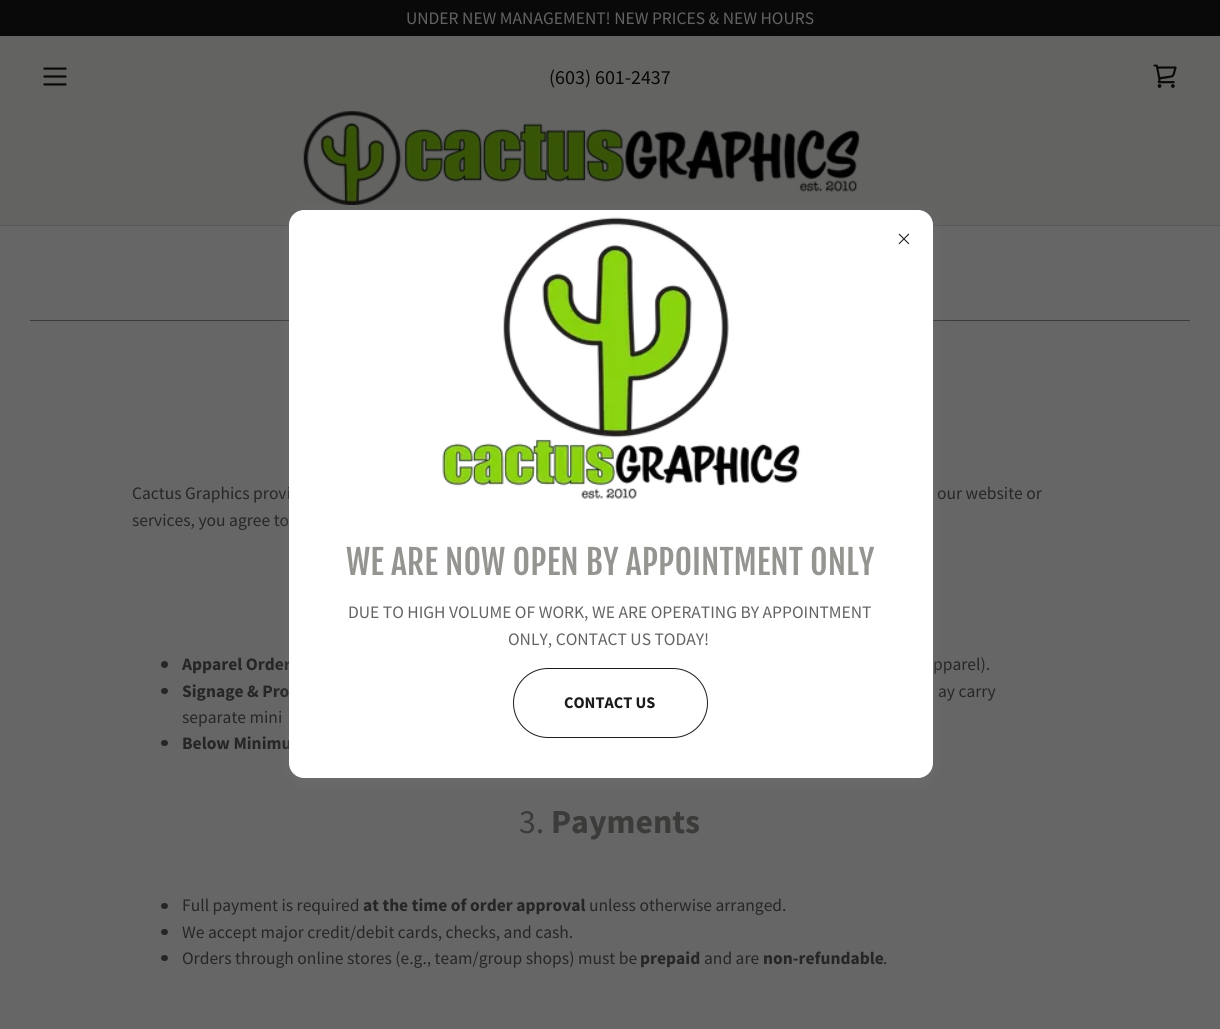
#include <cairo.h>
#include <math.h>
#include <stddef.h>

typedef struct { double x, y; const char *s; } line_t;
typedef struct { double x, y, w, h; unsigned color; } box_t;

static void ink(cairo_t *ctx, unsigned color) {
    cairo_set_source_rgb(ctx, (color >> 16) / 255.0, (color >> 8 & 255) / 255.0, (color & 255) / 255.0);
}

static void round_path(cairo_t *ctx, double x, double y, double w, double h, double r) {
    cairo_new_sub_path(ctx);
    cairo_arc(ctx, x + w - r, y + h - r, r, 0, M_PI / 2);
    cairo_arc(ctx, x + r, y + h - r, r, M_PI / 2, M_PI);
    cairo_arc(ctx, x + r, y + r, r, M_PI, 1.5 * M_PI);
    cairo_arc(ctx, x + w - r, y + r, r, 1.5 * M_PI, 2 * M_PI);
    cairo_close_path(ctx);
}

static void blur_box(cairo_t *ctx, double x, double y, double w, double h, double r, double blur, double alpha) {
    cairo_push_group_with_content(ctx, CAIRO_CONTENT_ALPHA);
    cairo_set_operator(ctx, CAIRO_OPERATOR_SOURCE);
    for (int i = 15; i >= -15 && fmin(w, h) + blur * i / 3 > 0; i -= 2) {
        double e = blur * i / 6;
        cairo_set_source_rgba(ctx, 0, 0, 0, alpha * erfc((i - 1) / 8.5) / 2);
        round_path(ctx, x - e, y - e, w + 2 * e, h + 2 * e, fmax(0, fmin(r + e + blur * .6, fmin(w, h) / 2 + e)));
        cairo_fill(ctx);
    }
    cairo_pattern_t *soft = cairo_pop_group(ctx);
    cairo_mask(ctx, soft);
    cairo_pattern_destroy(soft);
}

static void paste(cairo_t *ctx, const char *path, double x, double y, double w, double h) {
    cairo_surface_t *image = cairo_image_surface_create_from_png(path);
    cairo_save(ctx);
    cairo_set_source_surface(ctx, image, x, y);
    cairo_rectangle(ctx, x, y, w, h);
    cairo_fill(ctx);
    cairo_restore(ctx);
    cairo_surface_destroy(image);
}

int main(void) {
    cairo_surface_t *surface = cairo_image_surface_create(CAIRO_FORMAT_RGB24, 1220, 1029);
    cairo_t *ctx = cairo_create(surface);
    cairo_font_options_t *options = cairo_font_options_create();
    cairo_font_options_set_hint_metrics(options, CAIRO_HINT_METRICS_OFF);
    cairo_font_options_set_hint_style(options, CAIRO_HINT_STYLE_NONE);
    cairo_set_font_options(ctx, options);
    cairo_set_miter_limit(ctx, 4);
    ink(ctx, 0x636361);
    cairo_paint(ctx);
    ink(ctx, 0x090909);
    cairo_rectangle(ctx, 0, 0, 1220, 36);
    cairo_fill(ctx);
    cairo_select_font_face(ctx, "Source Sans Pro", CAIRO_FONT_SLANT_NORMAL, CAIRO_FONT_WEIGHT_NORMAL);
    cairo_set_font_size(ctx, 17.5);
    ink(ctx, 0x636363);
    cairo_move_to(ctx, 406, 24);
    cairo_show_text(ctx, "UNDER NEW MANAGEMENT! NEW PRICES & NEW HOURS");
    paste(ctx, "media/1.png", 43, 67, 24, 19);
    cairo_set_font_size(ctx, 20);
    ink(ctx, 0x090909);
    cairo_move_to(ctx, 549, 84);
    cairo_show_text(ctx, "(603) 601-2437");
    paste(ctx, "media/2.png", 1153, 64, 24, 24);
    paste(ctx, "media/3.png", 303, 111, 557, 94);
    {
        static const box_t items[] = {
            {0, 225, 1220, 1, 0x575756},
            {0, 226, 1220, 803, 0x666666},
            {30, 320, 259, 1, 0x3B3B3A},
            {933, 320, 257, 1, 0x3B3B3A},
        };
        for (size_t i = 0; i < sizeof items / sizeof *items; i++) {
            ink(ctx, items[i].color);
            cairo_rectangle(ctx, items[i].x, items[i].y, items[i].w, items[i].h);
            cairo_fill(ctx);
        }
    }
    cairo_set_font_size(ctx, 17.5);
    ink(ctx, 0x262626);
    {
        static const line_t items[] = {
            {132, 499, "Cactus Graphics provi"},
            {937, 499, "our website or"},
            {132, 526, "services, you agree to"},
        };
        for (size_t i = 0; i < sizeof items / sizeof *items; i++) {
            cairo_move_to(ctx, items[i].x, items[i].y);
            cairo_show_text(ctx, items[i].s);
        }
    }
    cairo_new_path(ctx);
    cairo_arc(ctx, 164.5, 664.5, 3.5, 0, 2 * M_PI);
    cairo_fill(ctx);
    cairo_select_font_face(ctx, "Source Sans Pro", CAIRO_FONT_SLANT_NORMAL, CAIRO_FONT_WEIGHT_BOLD);
    cairo_move_to(ctx, 182, 670);
    cairo_show_text(ctx, "Apparel Order");
    cairo_select_font_face(ctx, "Source Sans Pro", CAIRO_FONT_SLANT_NORMAL, CAIRO_FONT_WEIGHT_NORMAL);
    cairo_move_to(ctx, 933, 670);
    cairo_show_text(ctx, "pparel).");
    round_path(ctx, 161, 688, 7, 6, 3);
    cairo_fill(ctx);
    cairo_select_font_face(ctx, "Source Sans Pro", CAIRO_FONT_SLANT_NORMAL, CAIRO_FONT_WEIGHT_BOLD);
    cairo_move_to(ctx, 182, 697);
    cairo_show_text(ctx, "Signage & Pro");
    cairo_select_font_face(ctx, "Source Sans Pro", CAIRO_FONT_SLANT_NORMAL, CAIRO_FONT_WEIGHT_NORMAL);
    cairo_move_to(ctx, 938, 697);
    cairo_show_text(ctx, "ay carry");
    cairo_move_to(ctx, 182, 723);
    cairo_show_text(ctx, "separate mini");
    round_path(ctx, 161, 740, 7, 6, 3);
    cairo_fill(ctx);
    cairo_select_font_face(ctx, "Source Sans Pro", CAIRO_FONT_SLANT_NORMAL, CAIRO_FONT_WEIGHT_BOLD);
    cairo_move_to(ctx, 182, 749);
    cairo_show_text(ctx, "Below Minimu");
    cairo_select_font_face(ctx, "Source Sans Pro", CAIRO_FONT_SLANT_NORMAL, CAIRO_FONT_WEIGHT_NORMAL);
    cairo_set_font_size(ctx, 33.75);
    ink(ctx, 0x3B3B3A);
    cairo_move_to(ctx, 519, 833);
    cairo_show_text(ctx, "3.");
    cairo_select_font_face(ctx, "Source Sans Pro", CAIRO_FONT_SLANT_NORMAL, CAIRO_FONT_WEIGHT_BOLD);
    cairo_move_to(ctx, 551, 833);
    cairo_show_text(ctx, "Payments");
    ink(ctx, 0x262626);
    round_path(ctx, 161, 903, 7, 6, 3);
    cairo_fill(ctx);
    cairo_select_font_face(ctx, "Source Sans Pro", CAIRO_FONT_SLANT_NORMAL, CAIRO_FONT_WEIGHT_NORMAL);
    cairo_set_font_size(ctx, 17.5);
    cairo_move_to(ctx, 182, 911);
    cairo_show_text(ctx, "Full payment is required");
    cairo_select_font_face(ctx, "Source Sans Pro", CAIRO_FONT_SLANT_NORMAL, CAIRO_FONT_WEIGHT_BOLD);
    cairo_move_to(ctx, 363, 911);
    cairo_show_text(ctx, "at the time of order approval");
    cairo_select_font_face(ctx, "Source Sans Pro", CAIRO_FONT_SLANT_NORMAL, CAIRO_FONT_WEIGHT_NORMAL);
    cairo_move_to(ctx, 589, 911);
    cairo_show_text(ctx, "unless otherwise arranged.");
    round_path(ctx, 161, 929, 7, 6, 3);
    cairo_fill(ctx);
    cairo_move_to(ctx, 182, 938);
    cairo_show_text(ctx, "We accept major credit/debit cards, checks, and cash.");
    round_path(ctx, 161, 955, 7, 6, 3);
    cairo_fill(ctx);
    cairo_move_to(ctx, 182, 964);
    cairo_show_text(ctx, "Orders through online stores (e.g., team/group shops) must be");
    cairo_select_font_face(ctx, "Source Sans Pro", CAIRO_FONT_SLANT_NORMAL, CAIRO_FONT_WEIGHT_BOLD);
    cairo_move_to(ctx, 640, 964);
    cairo_show_text(ctx, "prepaid");
    cairo_select_font_face(ctx, "Source Sans Pro", CAIRO_FONT_SLANT_NORMAL, CAIRO_FONT_WEIGHT_NORMAL);
    cairo_move_to(ctx, 704, 964);
    cairo_show_text(ctx, "and are");
    cairo_select_font_face(ctx, "Source Sans Pro", CAIRO_FONT_SLANT_NORMAL, CAIRO_FONT_WEIGHT_BOLD);
    cairo_move_to(ctx, 763, 964);
    cairo_show_text(ctx, "non-refundable");
    cairo_select_font_face(ctx, "Source Sans Pro", CAIRO_FONT_SLANT_NORMAL, CAIRO_FONT_WEIGHT_NORMAL);
    cairo_move_to(ctx, 883, 964);
    cairo_show_text(ctx, ".");
    ink(ctx, 0x757575);
    blur_box(ctx, 289, 215, 644, 568, 15, 7.5, 0.4);
    ink(ctx, 0xFFFFFF);
    round_path(ctx, 289, 210, 644, 568, 15);
    cairo_fill(ctx);
    paste(ctx, "media/4.png", 898, 233, 12, 12);
    paste(ctx, "media/5.png", 442, 217, 359, 282);
    cairo_select_font_face(ctx, "Fjalla One", CAIRO_FONT_SLANT_NORMAL, CAIRO_FONT_WEIGHT_NORMAL);
    cairo_set_font_size(ctx, 33.75);
    ink(ctx, 0x949491);
    cairo_move_to(ctx, 346, 575);
    cairo_show_text(ctx, "WE ARE NOW OPEN BY APPOINTMENT ONLY");
    cairo_select_font_face(ctx, "Source Sans Pro", CAIRO_FONT_SLANT_NORMAL, CAIRO_FONT_WEIGHT_NORMAL);
    cairo_set_font_size(ctx, 17.5);
    ink(ctx, 0x636363);
    cairo_move_to(ctx, 348, 618);
    cairo_show_text(ctx, "DUE TO HIGH VOLUME OF WORK, WE ARE OPERATING BY APPOINTMENT");
    cairo_move_to(ctx, 508, 645);
    cairo_show_text(ctx, "ONLY, CONTACT US TODAY!");
    round_path(ctx, 513.5, 668.5, 194, 69, 34.5);
    ink(ctx, 0x1B1B1B);
    cairo_set_line_width(ctx, 1);
    cairo_stroke(ctx);
    cairo_select_font_face(ctx, "Source Sans Pro", CAIRO_FONT_SLANT_NORMAL, CAIRO_FONT_WEIGHT_BOLD);
    cairo_set_font_size(ctx, 16.25);
    cairo_move_to(ctx, 564, 708);
    cairo_show_text(ctx, "CONTACT US");
    cairo_surface_write_to_png(surface, "image.png");
    cairo_font_options_destroy(options);
    cairo_destroy(ctx);
    cairo_surface_destroy(surface);
    return 0;
}
